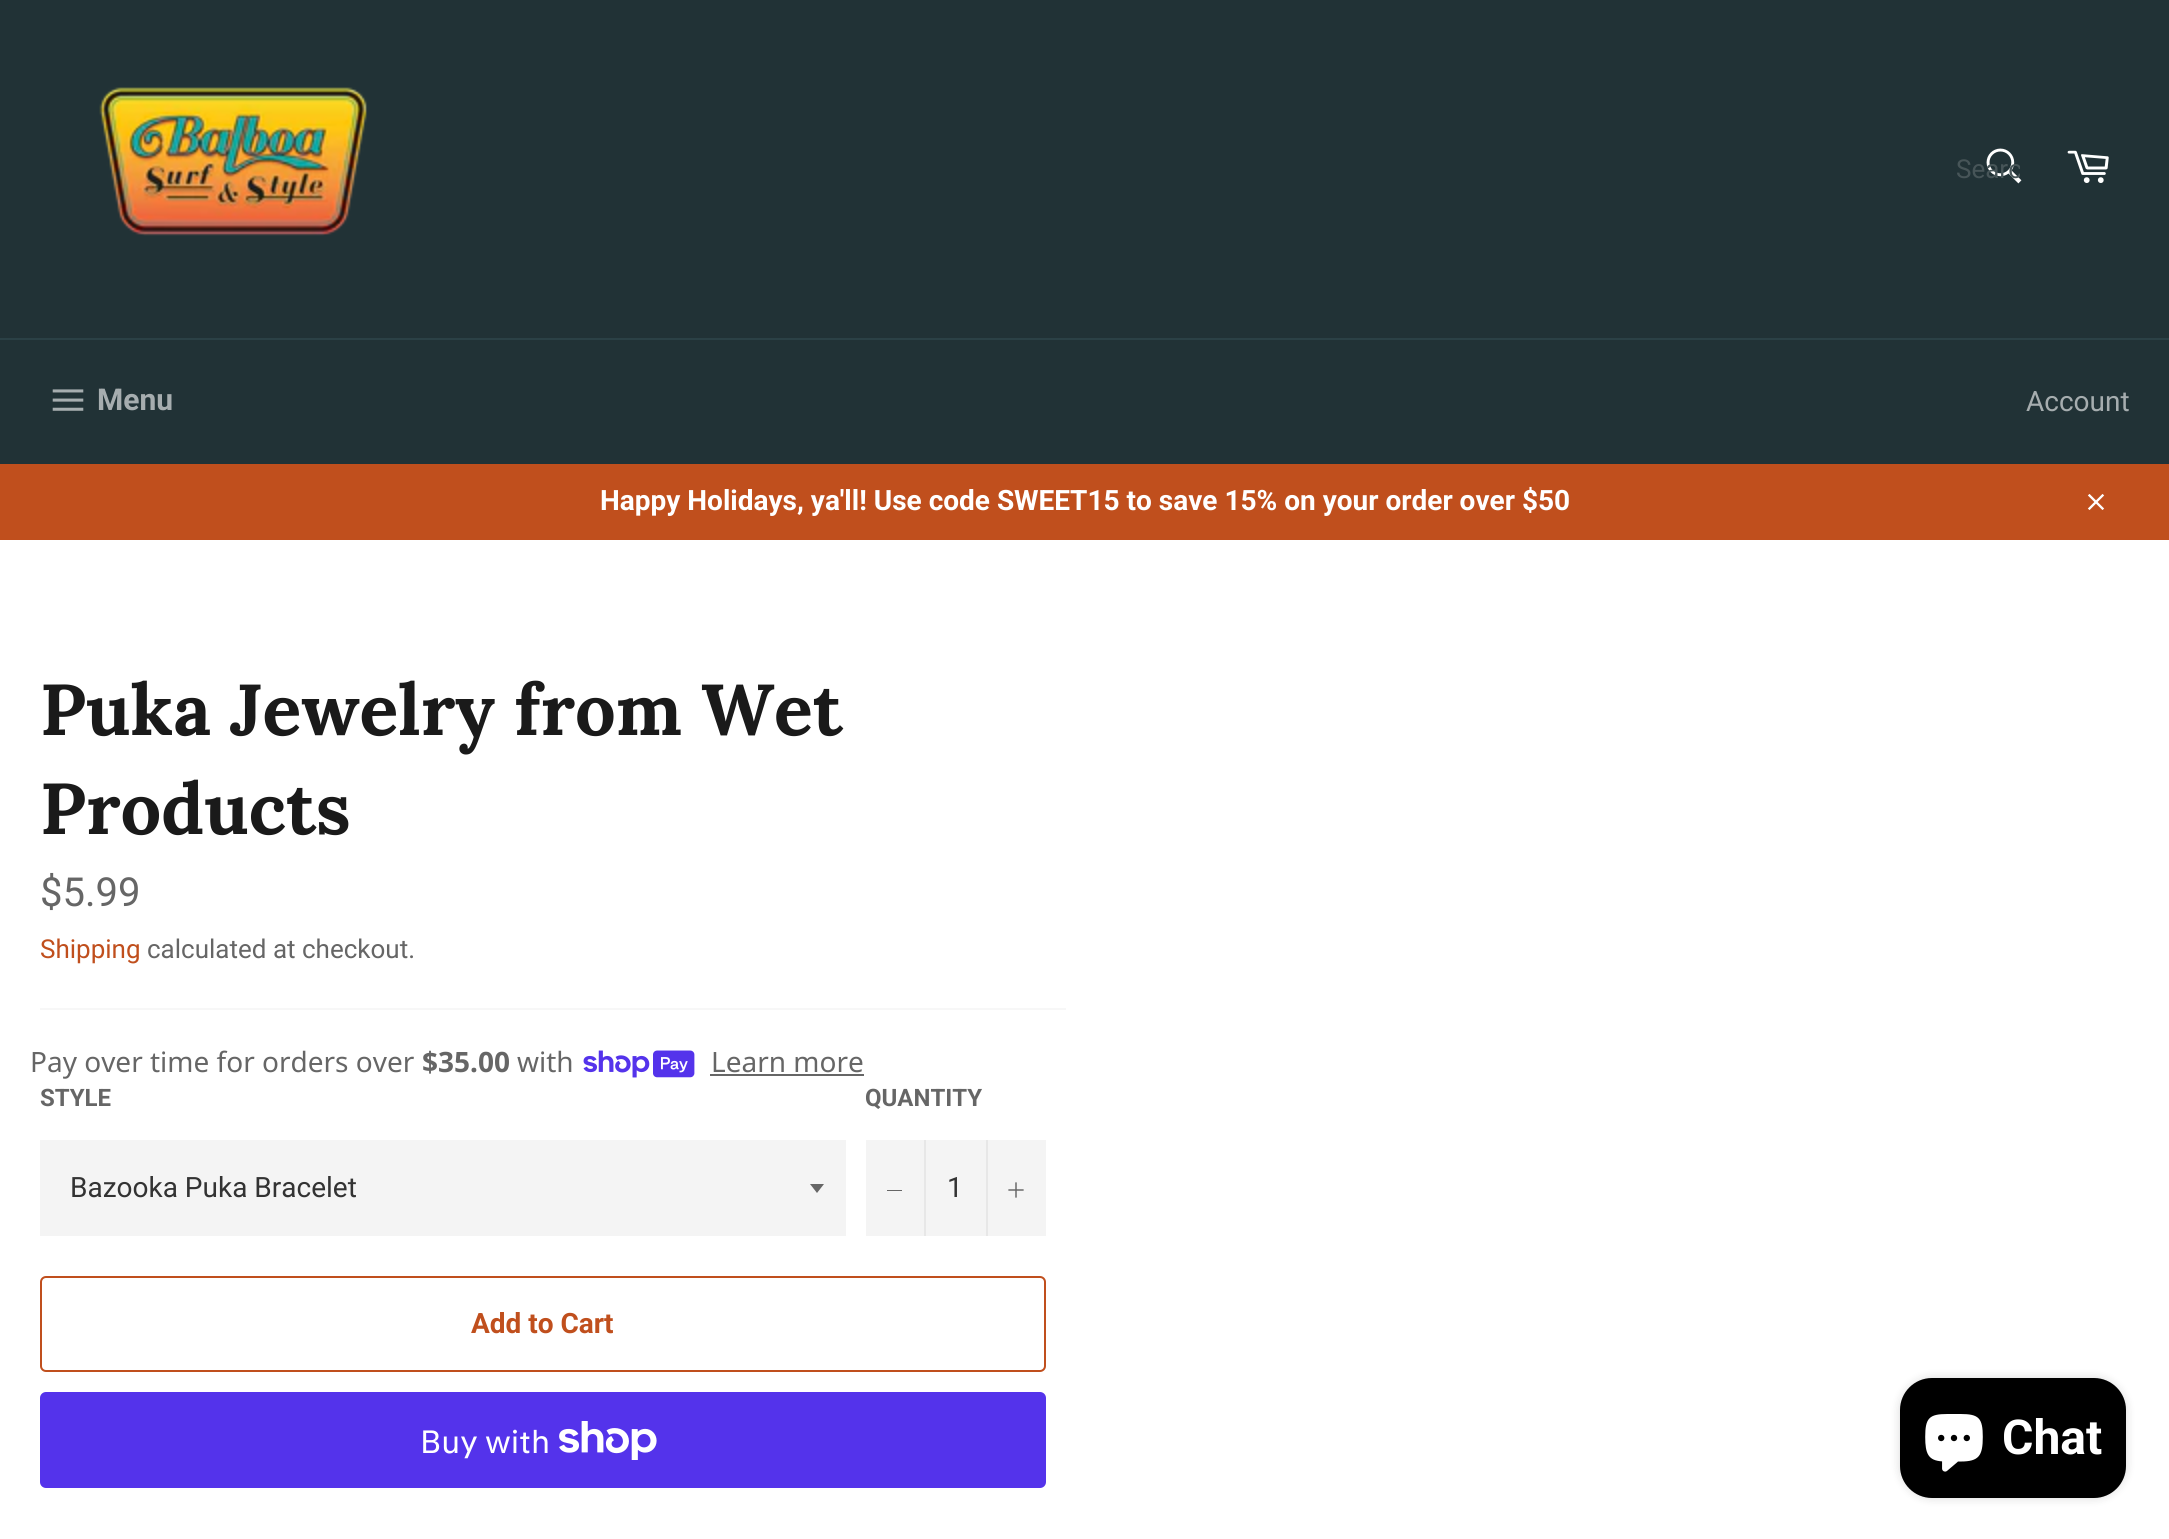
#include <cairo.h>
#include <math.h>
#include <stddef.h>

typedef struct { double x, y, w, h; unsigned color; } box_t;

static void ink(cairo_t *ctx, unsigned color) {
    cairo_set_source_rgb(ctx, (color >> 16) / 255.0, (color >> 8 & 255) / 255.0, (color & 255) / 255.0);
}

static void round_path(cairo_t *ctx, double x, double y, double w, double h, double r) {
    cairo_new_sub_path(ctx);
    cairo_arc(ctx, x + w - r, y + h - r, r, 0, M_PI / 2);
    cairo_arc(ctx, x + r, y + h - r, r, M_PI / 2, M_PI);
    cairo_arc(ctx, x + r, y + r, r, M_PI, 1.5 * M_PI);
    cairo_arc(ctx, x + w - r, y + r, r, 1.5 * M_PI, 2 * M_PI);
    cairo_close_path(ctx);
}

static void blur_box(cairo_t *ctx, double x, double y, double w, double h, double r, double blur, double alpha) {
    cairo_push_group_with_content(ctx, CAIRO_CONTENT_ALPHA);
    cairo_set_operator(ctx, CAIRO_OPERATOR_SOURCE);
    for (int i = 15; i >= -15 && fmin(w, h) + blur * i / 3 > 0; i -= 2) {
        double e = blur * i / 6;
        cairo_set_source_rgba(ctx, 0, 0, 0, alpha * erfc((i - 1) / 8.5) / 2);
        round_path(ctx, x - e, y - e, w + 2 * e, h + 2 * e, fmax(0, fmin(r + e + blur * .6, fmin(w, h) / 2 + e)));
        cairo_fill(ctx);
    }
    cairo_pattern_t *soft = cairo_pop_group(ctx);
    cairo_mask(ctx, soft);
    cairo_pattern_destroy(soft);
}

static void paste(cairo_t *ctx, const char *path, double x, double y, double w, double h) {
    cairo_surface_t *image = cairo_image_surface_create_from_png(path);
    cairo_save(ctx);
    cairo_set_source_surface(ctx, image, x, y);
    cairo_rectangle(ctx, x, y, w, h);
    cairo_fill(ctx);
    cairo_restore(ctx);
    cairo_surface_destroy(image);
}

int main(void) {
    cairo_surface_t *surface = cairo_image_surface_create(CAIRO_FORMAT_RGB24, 2169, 1539);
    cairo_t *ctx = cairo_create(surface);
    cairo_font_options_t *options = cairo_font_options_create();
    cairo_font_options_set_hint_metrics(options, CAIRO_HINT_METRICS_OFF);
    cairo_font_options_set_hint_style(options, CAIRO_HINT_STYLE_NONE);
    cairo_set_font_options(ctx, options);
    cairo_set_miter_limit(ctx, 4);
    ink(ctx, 0x213236);
    cairo_paint(ctx);
    paste(ctx, "media/1.png", 99, 87, 268, 149);
    paste(ctx, "media/2.png", 1986, 148, 36, 36);
    cairo_save(ctx);
    cairo_rectangle(ctx, 1956, 154, 64, 30);
    cairo_clip(ctx);
    cairo_select_font_face(ctx, "Roboto", CAIRO_FONT_SLANT_NORMAL, CAIRO_FONT_WEIGHT_NORMAL);
    cairo_set_font_size(ctx, 26);
    ink(ctx, 0x475558);
    cairo_move_to(ctx, 1956, 178);
    cairo_show_text(ctx, "Searc");
    cairo_restore(ctx);
    paste(ctx, "media/3.png", 2067, 150, 42, 33);
    ink(ctx, 0x2B4146);
    cairo_rectangle(ctx, 0, 338, 2169, 2);
    cairo_fill(ctx);
    paste(ctx, "media/4.png", 52, 389, 32, 22);
    cairo_select_font_face(ctx, "Roboto", CAIRO_FONT_SLANT_NORMAL, CAIRO_FONT_WEIGHT_BOLD);
    cairo_set_font_size(ctx, 30);
    ink(ctx, 0xA6ADAF);
    cairo_move_to(ctx, 97, 410);
    cairo_show_text(ctx, "Menu");
    cairo_select_font_face(ctx, "Roboto", CAIRO_FONT_SLANT_NORMAL, CAIRO_FONT_WEIGHT_NORMAL);
    cairo_set_font_size(ctx, 28);
    cairo_move_to(ctx, 2026, 411);
    cairo_show_text(ctx, "Account");
    ink(ctx, 0xC04F1D);
    cairo_rectangle(ctx, 0, 464, 2169, 76);
    cairo_fill(ctx);
    cairo_select_font_face(ctx, "Roboto", CAIRO_FONT_SLANT_NORMAL, CAIRO_FONT_WEIGHT_BOLD);
    ink(ctx, 0xFFFFFF);
    cairo_move_to(ctx, 600, 510);
    cairo_show_text(ctx, "Happy Holidays, ya'll! Use code SWEET15 to save 15% on your order over $50");
    paste(ctx, "media/5.png", 2087, 494, 18, 16);
    cairo_rectangle(ctx, 0, 540, 2169, 999);
    cairo_fill(ctx);
    cairo_select_font_face(ctx, "Lora", CAIRO_FONT_SLANT_NORMAL, CAIRO_FONT_WEIGHT_BOLD);
    cairo_set_font_size(ctx, 72);
    ink(ctx, 0x1A1A1A);
    cairo_move_to(ctx, 40, 735);
    cairo_show_text(ctx, "Puka Jewelry from Wet");
    cairo_move_to(ctx, 40, 834);
    cairo_show_text(ctx, "Products");
    cairo_select_font_face(ctx, "Roboto", CAIRO_FONT_SLANT_NORMAL, CAIRO_FONT_WEIGHT_NORMAL);
    cairo_set_font_size(ctx, 40);
    ink(ctx, 0x666666);
    cairo_move_to(ctx, 40, 906);
    cairo_show_text(ctx, "$5.99");
    cairo_set_font_size(ctx, 26);
    ink(ctx, 0xC04F1D);
    cairo_move_to(ctx, 40, 958);
    cairo_show_text(ctx, "Shipping");
    ink(ctx, 0x666666);
    cairo_move_to(ctx, 147, 958);
    cairo_show_text(ctx, "calculated at checkout.");
    ink(ctx, 0xF7F7F7);
    cairo_rectangle(ctx, 40, 1008, 1026, 2);
    cairo_fill(ctx);
    cairo_select_font_face(ctx, "Noto Sans", CAIRO_FONT_SLANT_NORMAL, CAIRO_FONT_WEIGHT_NORMAL);
    cairo_set_font_size(ctx, 28);
    ink(ctx, 0x666666);
    cairo_move_to(ctx, 30, 1072);
    cairo_show_text(ctx, "Pay over time for orders over");
    cairo_select_font_face(ctx, "Noto Sans", CAIRO_FONT_SLANT_NORMAL, CAIRO_FONT_WEIGHT_BOLD);
    cairo_move_to(ctx, 422, 1072);
    cairo_show_text(ctx, "$35.00");
    cairo_select_font_face(ctx, "Noto Sans", CAIRO_FONT_SLANT_NORMAL, CAIRO_FONT_WEIGHT_NORMAL);
    cairo_move_to(ctx, 517, 1072);
    cairo_show_text(ctx, "with");
    paste(ctx, "media/6.png", 583, 1050, 112, 28);
    cairo_move_to(ctx, 711, 1072);
    cairo_show_text(ctx, "Learn more");
    cairo_rectangle(ctx, 710, 1074, 154, 2);
    cairo_fill(ctx);
    cairo_select_font_face(ctx, "Roboto", CAIRO_FONT_SLANT_NORMAL, CAIRO_FONT_WEIGHT_BOLD);
    cairo_set_font_size(ctx, 24);
    cairo_move_to(ctx, 40, 1106);
    cairo_show_text(ctx, "STYLE");
    ink(ctx, 0xF4F4F4);
    cairo_rectangle(ctx, 40, 1140, 806, 96);
    cairo_fill(ctx);
    ink(ctx, 0x666666);
    cairo_new_path(ctx);
    cairo_move_to(ctx, 810, 1184);
    cairo_line_to(ctx, 817, 1193);
    cairo_line_to(ctx, 824, 1184);
    cairo_close_path(ctx);
    cairo_fill(ctx);
    cairo_select_font_face(ctx, "Roboto", CAIRO_FONT_SLANT_NORMAL, CAIRO_FONT_WEIGHT_NORMAL);
    cairo_set_font_size(ctx, 28);
    ink(ctx, 0x333333);
    cairo_move_to(ctx, 70, 1197);
    cairo_show_text(ctx, "Bazooka Puka Bracelet");
    cairo_select_font_face(ctx, "Roboto", CAIRO_FONT_SLANT_NORMAL, CAIRO_FONT_WEIGHT_BOLD);
    cairo_set_font_size(ctx, 24);
    ink(ctx, 0x666666);
    cairo_move_to(ctx, 865, 1106);
    cairo_show_text(ctx, "QUANTITY");
    {
        static const box_t items[] = {
            {866, 1140, 180, 96, 0xF4F4F4},
            {924, 1140, 2, 96, 0xE7E7E7},
            {887, 1190, 15, 1, 0x666666},
        };
        for (size_t i = 0; i < sizeof items / sizeof *items; i++) {
            ink(ctx, items[i].color);
            cairo_rectangle(ctx, items[i].x, items[i].y, items[i].w, items[i].h);
            cairo_fill(ctx);
        }
    }
    cairo_select_font_face(ctx, "Roboto", CAIRO_FONT_SLANT_NORMAL, CAIRO_FONT_WEIGHT_NORMAL);
    cairo_set_font_size(ctx, 28);
    ink(ctx, 0x333333);
    cairo_move_to(ctx, 947, 1197);
    cairo_show_text(ctx, "1");
    ink(ctx, 0xE7E7E7);
    cairo_rectangle(ctx, 986, 1140, 2, 96);
    cairo_fill(ctx);
    paste(ctx, "media/7.png", 1008, 1182, 16, 16);
    round_path(ctx, 41, 1277, 1004, 94, 5);
    ink(ctx, 0xC04F1D);
    cairo_stroke(ctx);
    cairo_select_font_face(ctx, "Roboto", CAIRO_FONT_SLANT_NORMAL, CAIRO_FONT_WEIGHT_BOLD);
    cairo_move_to(ctx, 471, 1333);
    cairo_show_text(ctx, "Add to Cart");
    ink(ctx, 0x5433EB);
    round_path(ctx, 40, 1392, 1006, 96, 6);
    cairo_fill(ctx);
    cairo_select_font_face(ctx, "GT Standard", CAIRO_FONT_SLANT_NORMAL, CAIRO_FONT_WEIGHT_NORMAL);
    cairo_set_font_size(ctx, 32);
    ink(ctx, 0xFFFFFF);
    cairo_move_to(ctx, 420, 1453);
    cairo_show_text(ctx, "Buy with");
    paste(ctx, "media/8.png", 559, 1421, 98, 39);
    ink(ctx, 0x000000);
    blur_box(ctx, 1900, 1378, 226, 120, 32, 5, 0.15);
    ink(ctx, 0x000000);
    round_path(ctx, 1900, 1378, 226, 120, 32);
    cairo_fill(ctx);
    paste(ctx, "media/9.png", 1925, 1414, 58, 58);
    cairo_select_font_face(ctx, "Roboto", CAIRO_FONT_SLANT_NORMAL, CAIRO_FONT_WEIGHT_BOLD);
    cairo_set_font_size(ctx, 48);
    ink(ctx, 0xFFFFFF);
    cairo_move_to(ctx, 2002, 1454);
    cairo_show_text(ctx, "Chat");
    cairo_surface_write_to_png(surface, "image.png");
    cairo_font_options_destroy(options);
    cairo_destroy(ctx);
    cairo_surface_destroy(surface);
    return 0;
}
